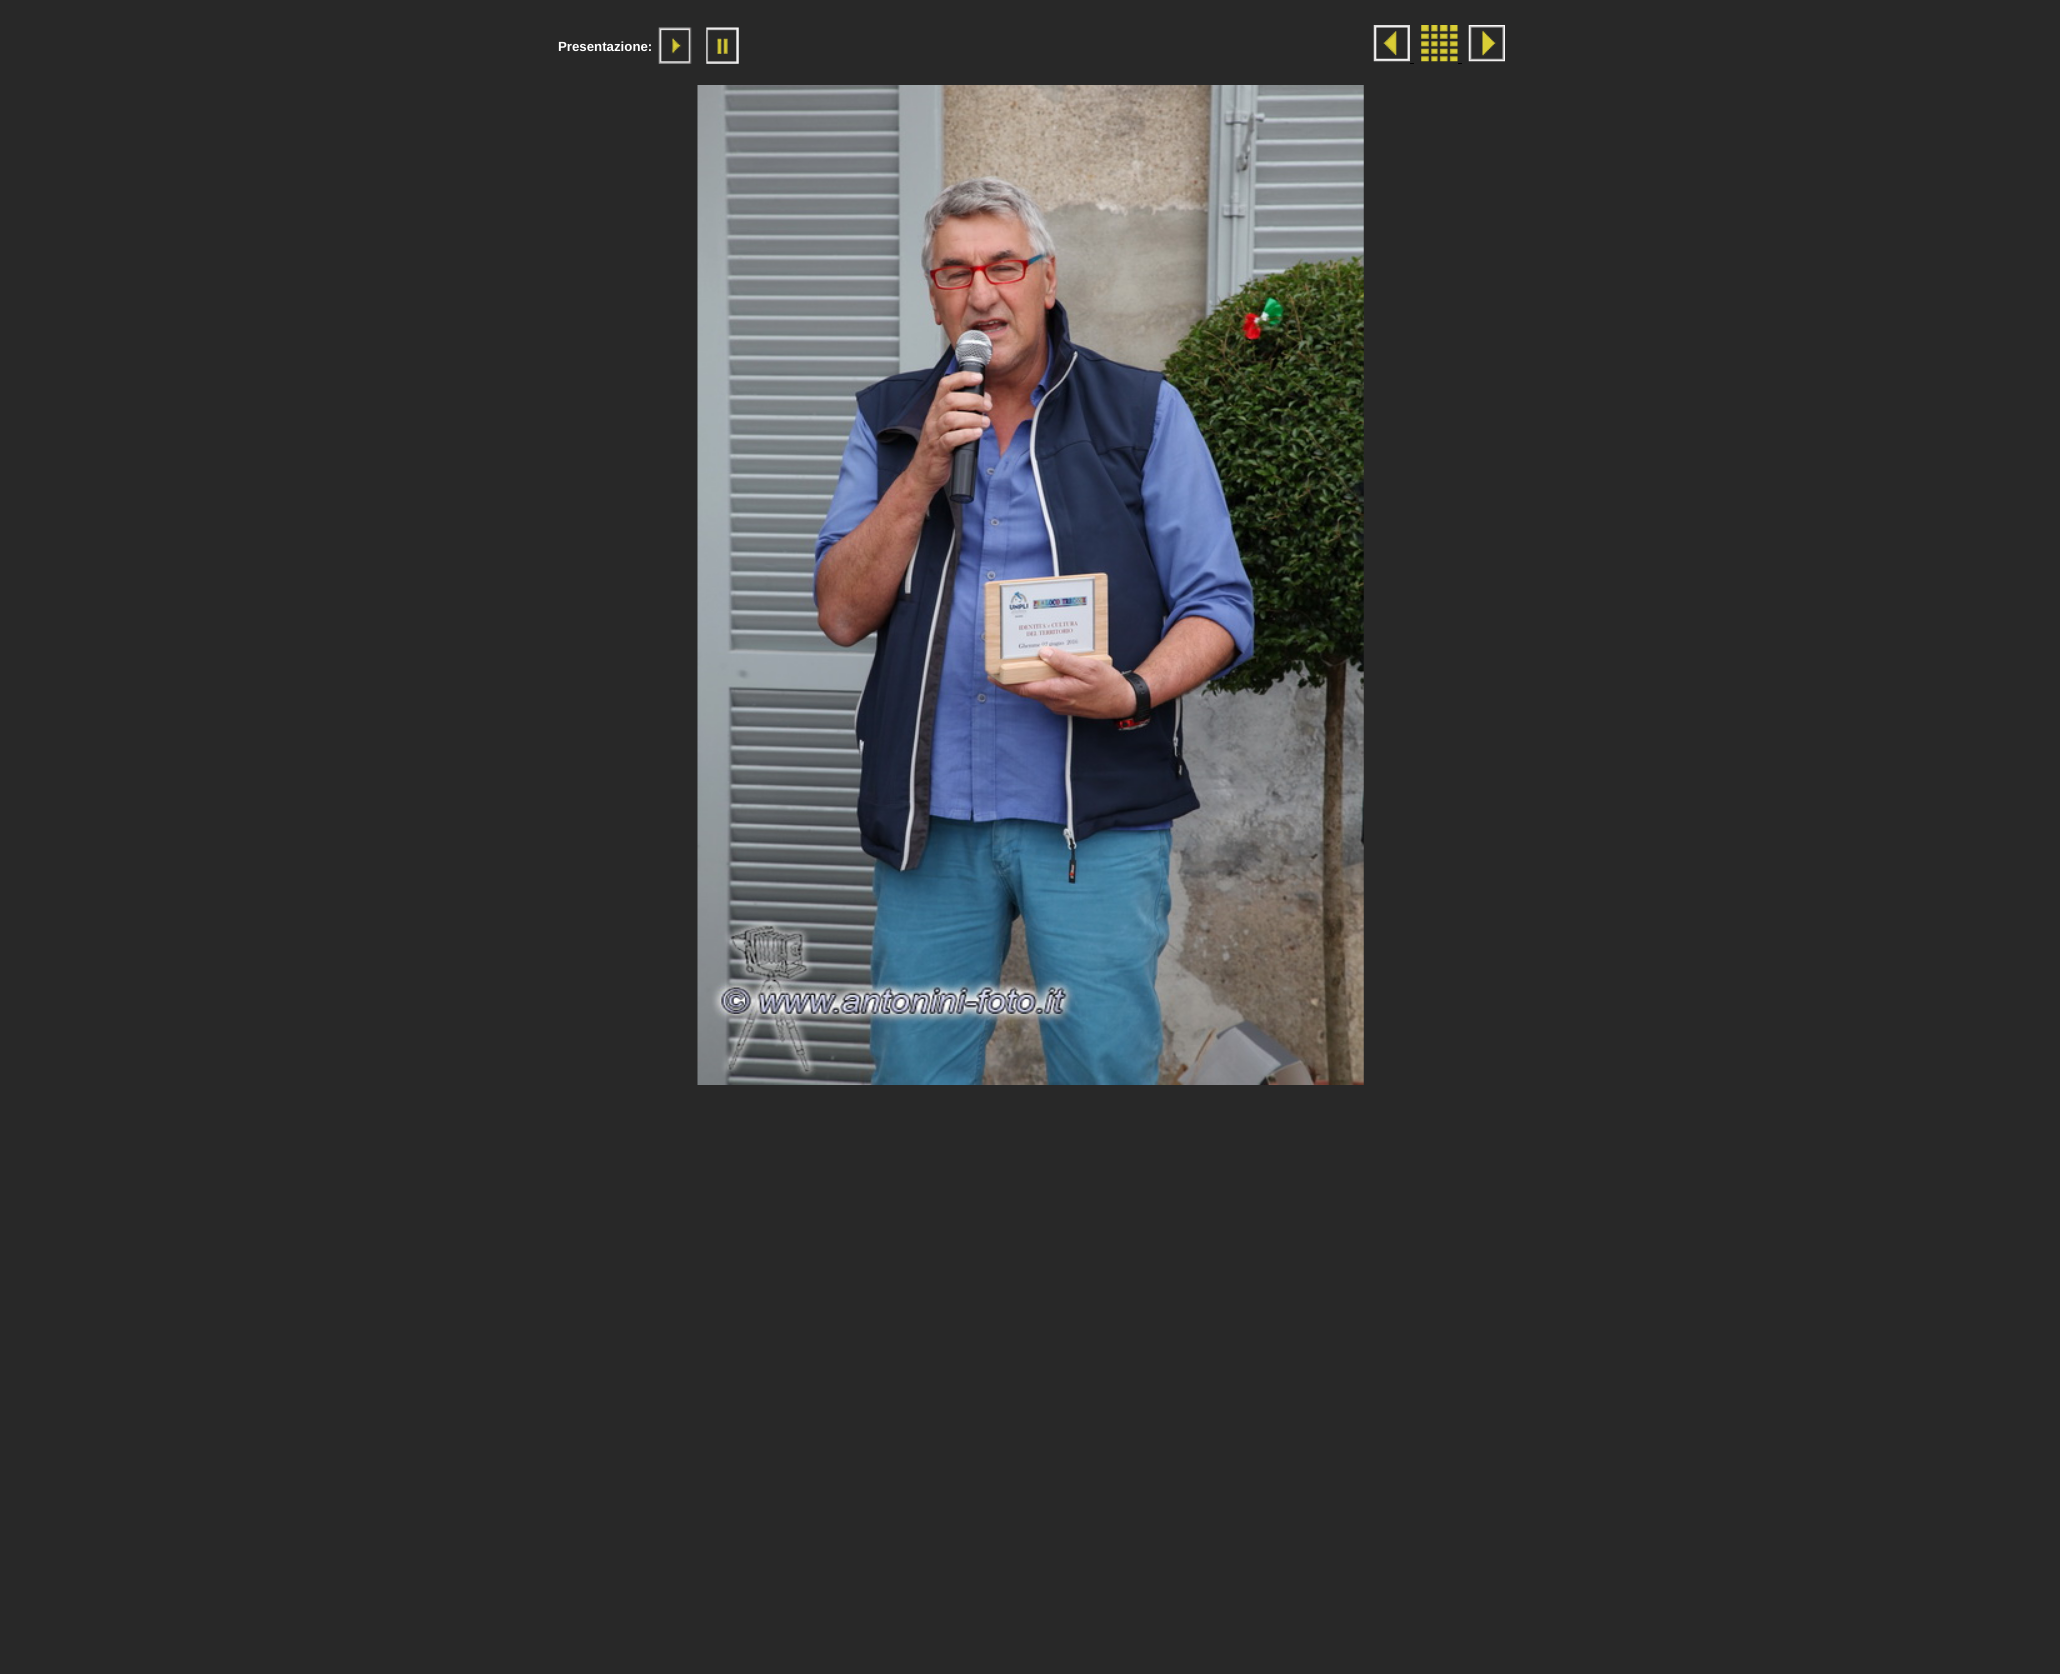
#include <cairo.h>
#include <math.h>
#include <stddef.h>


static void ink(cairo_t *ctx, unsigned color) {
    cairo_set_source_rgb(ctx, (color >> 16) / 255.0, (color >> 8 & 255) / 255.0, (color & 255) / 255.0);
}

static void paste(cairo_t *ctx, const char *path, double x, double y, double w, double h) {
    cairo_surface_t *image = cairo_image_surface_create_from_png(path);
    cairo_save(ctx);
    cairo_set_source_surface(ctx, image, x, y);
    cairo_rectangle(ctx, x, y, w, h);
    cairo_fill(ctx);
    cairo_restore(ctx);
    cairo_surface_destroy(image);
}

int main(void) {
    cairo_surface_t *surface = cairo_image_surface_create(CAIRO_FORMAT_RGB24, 2060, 1674);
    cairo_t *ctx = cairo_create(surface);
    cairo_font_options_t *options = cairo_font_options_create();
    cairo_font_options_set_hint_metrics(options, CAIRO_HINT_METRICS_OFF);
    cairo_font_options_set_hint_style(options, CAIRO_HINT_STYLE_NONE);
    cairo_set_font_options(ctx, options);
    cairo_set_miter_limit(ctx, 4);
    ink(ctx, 0x282828);
    cairo_paint(ctx);
    cairo_select_font_face(ctx, "Liberation Sans", CAIRO_FONT_SLANT_NORMAL, CAIRO_FONT_WEIGHT_BOLD);
    cairo_set_font_size(ctx, 13.25);
    ink(ctx, 0xFFFFFF);
    cairo_move_to(ctx, 558, 51);
    cairo_show_text(ctx, "Presentazione:");
    paste(ctx, "media/1.png", 658, 27, 34, 37);
    paste(ctx, "media/2.png", 706, 27, 33, 37);
    paste(ctx, "media/3.png", 1373, 25, 37, 37);
    paste(ctx, "media/4.png", 1421, 25, 37, 37);
    paste(ctx, "media/5.png", 1468, 25, 37, 37);
    ink(ctx, 0x000000);
    cairo_rectangle(ctx, 1410, 63, 4, 1);
    cairo_fill(ctx);
    cairo_rectangle(ctx, 1458, 63, 4, 1);
    cairo_fill(ctx);
    paste(ctx, "media/6.png", 697, 85, 667, 1000);
    cairo_surface_write_to_png(surface, "image.png");
    cairo_font_options_destroy(options);
    cairo_destroy(ctx);
    cairo_surface_destroy(surface);
    return 0;
}
